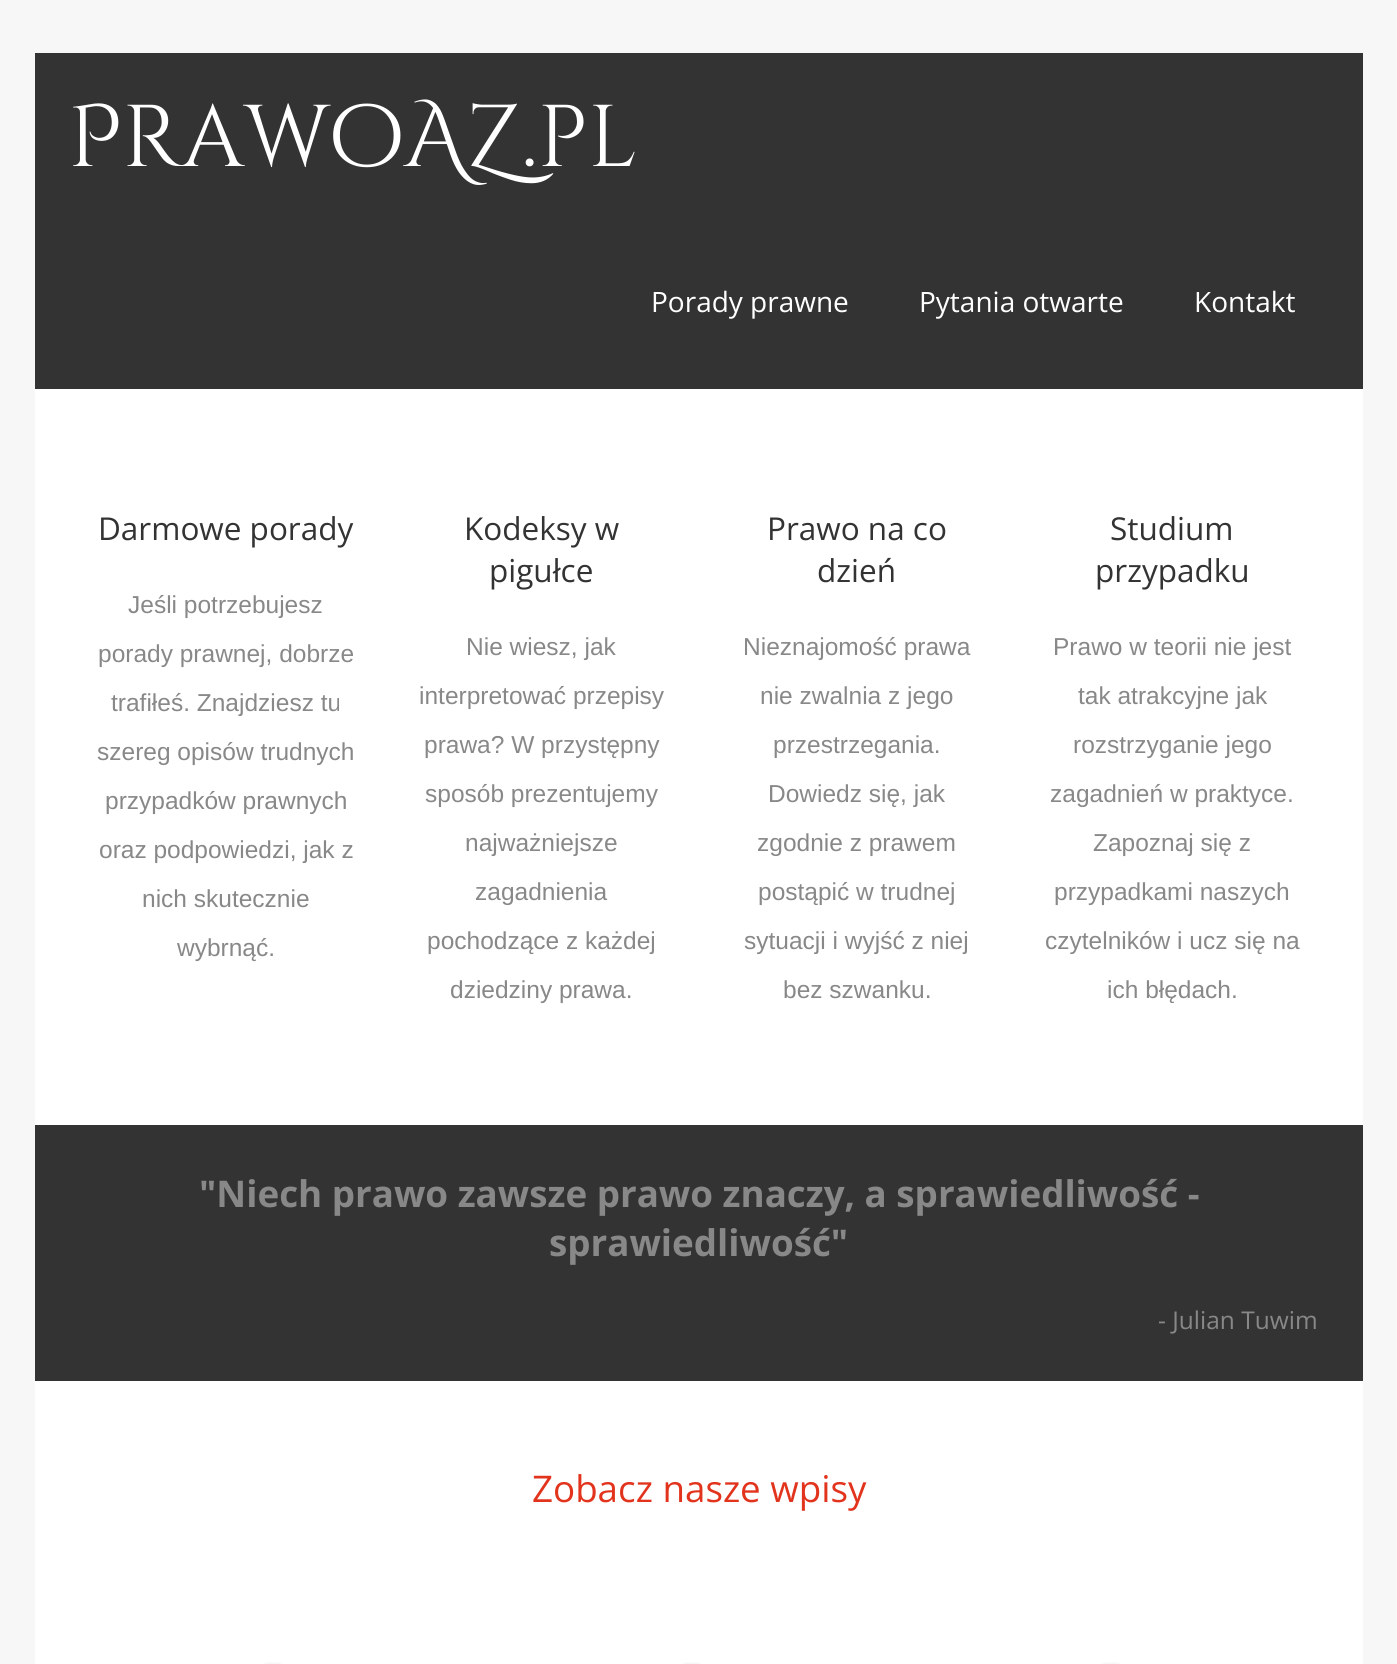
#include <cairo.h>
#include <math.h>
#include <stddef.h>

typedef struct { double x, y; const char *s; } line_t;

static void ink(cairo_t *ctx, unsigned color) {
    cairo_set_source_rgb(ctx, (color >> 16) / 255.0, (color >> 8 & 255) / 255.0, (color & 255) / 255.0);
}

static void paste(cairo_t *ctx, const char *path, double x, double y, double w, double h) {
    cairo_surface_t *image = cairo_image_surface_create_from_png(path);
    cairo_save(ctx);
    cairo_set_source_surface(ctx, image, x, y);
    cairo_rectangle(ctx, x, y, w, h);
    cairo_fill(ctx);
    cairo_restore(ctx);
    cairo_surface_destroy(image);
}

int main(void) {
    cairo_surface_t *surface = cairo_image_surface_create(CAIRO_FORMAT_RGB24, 1397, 1664);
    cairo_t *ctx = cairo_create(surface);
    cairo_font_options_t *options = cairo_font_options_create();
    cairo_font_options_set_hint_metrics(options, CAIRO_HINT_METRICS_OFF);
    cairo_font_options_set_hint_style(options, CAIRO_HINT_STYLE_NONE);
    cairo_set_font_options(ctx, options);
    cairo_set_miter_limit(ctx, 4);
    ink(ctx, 0xF7F7F7);
    cairo_paint(ctx);
    ink(ctx, 0x333333);
    cairo_rectangle(ctx, 35, 53, 1328, 336);
    cairo_fill(ctx);
    cairo_select_font_face(ctx, "Cinzel Decorative", CAIRO_FONT_SLANT_NORMAL, CAIRO_FONT_WEIGHT_NORMAL);
    cairo_set_font_size(ctx, 87.5);
    ink(ctx, 0xFFFFFF);
    cairo_move_to(ctx, 68, 166);
    cairo_show_text(ctx, "PrawoAZ.pl");
    cairo_select_font_face(ctx, "Open Sans", CAIRO_FONT_SLANT_NORMAL, CAIRO_FONT_WEIGHT_NORMAL);
    cairo_set_font_size(ctx, 28);
    {
        static const line_t items[] = {
            {651, 312, "Porady prawne"},
            {919, 312, "Pytania otwarte"},
            {1194, 312, "Kontakt"},
        };
        for (size_t i = 0; i < sizeof items / sizeof *items; i++) {
            cairo_move_to(ctx, items[i].x, items[i].y);
            cairo_show_text(ctx, items[i].s);
        }
    }
    cairo_rectangle(ctx, 35, 389, 1328, 1275);
    cairo_fill(ctx);
    cairo_set_font_size(ctx, 31.5);
    ink(ctx, 0x333333);
    cairo_move_to(ctx, 98, 540);
    cairo_show_text(ctx, "Darmowe porady");
    cairo_select_font_face(ctx, "Liberation Sans", CAIRO_FONT_SLANT_NORMAL, CAIRO_FONT_WEIGHT_NORMAL);
    cairo_set_font_size(ctx, 24.5);
    ink(ctx, 0x888888);
    {
        static const line_t items[] = {
            {128, 613, "Jeśli potrzebujesz"},
            {98, 662, "porady prawnej, dobrze"},
            {111, 711, "trafiłeś. Znajdziesz tu"},
            {97, 760, "szereg opisów trudnych"},
            {105, 809, "przypadków prawnych"},
            {99, 858, "oraz podpowiedzi, jak z"},
            {142, 907, "nich skutecznie"},
            {177, 956, "wybrnąć."},
        };
        for (size_t i = 0; i < sizeof items / sizeof *items; i++) {
            cairo_move_to(ctx, items[i].x, items[i].y);
            cairo_show_text(ctx, items[i].s);
        }
    }
    cairo_select_font_face(ctx, "Open Sans", CAIRO_FONT_SLANT_NORMAL, CAIRO_FONT_WEIGHT_NORMAL);
    cairo_set_font_size(ctx, 31.5);
    ink(ctx, 0x333333);
    cairo_move_to(ctx, 464, 540);
    cairo_show_text(ctx, "Kodeksy w");
    cairo_move_to(ctx, 489, 582);
    cairo_show_text(ctx, "pigułce");
    cairo_select_font_face(ctx, "Liberation Sans", CAIRO_FONT_SLANT_NORMAL, CAIRO_FONT_WEIGHT_NORMAL);
    cairo_set_font_size(ctx, 24.5);
    ink(ctx, 0x888888);
    {
        static const line_t items[] = {
            {466, 655, "Nie wiesz, jak"},
            {419, 704, "interpretować przepisy"},
            {424, 753, "prawa? W przystępny"},
            {425, 802, "sposób prezentujemy"},
            {465, 851, "najważniejsze"},
            {475, 900, "zagadnienia"},
            {427, 949, "pochodzące z każdej"},
            {450, 998, "dziedziny prawa."},
        };
        for (size_t i = 0; i < sizeof items / sizeof *items; i++) {
            cairo_move_to(ctx, items[i].x, items[i].y);
            cairo_show_text(ctx, items[i].s);
        }
    }
    cairo_select_font_face(ctx, "Open Sans", CAIRO_FONT_SLANT_NORMAL, CAIRO_FONT_WEIGHT_NORMAL);
    cairo_set_font_size(ctx, 31.5);
    ink(ctx, 0x333333);
    cairo_move_to(ctx, 767, 540);
    cairo_show_text(ctx, "Prawo na co");
    cairo_move_to(ctx, 817, 582);
    cairo_show_text(ctx, "dzień");
    cairo_select_font_face(ctx, "Liberation Sans", CAIRO_FONT_SLANT_NORMAL, CAIRO_FONT_WEIGHT_NORMAL);
    cairo_set_font_size(ctx, 24.5);
    ink(ctx, 0x888888);
    {
        static const line_t items[] = {
            {743, 655, "Nieznajomość prawa"},
            {760, 704, "nie zwalnia z jego"},
            {773, 753, "przestrzegania."},
            {768, 802, "Dowiedz się, jak"},
            {757, 851, "zgodnie z prawem"},
            {758, 900, "postąpić w trudnej"},
            {744, 949, "sytuacji i wyjść z niej"},
            {783, 998, "bez szwanku."},
        };
        for (size_t i = 0; i < sizeof items / sizeof *items; i++) {
            cairo_move_to(ctx, items[i].x, items[i].y);
            cairo_show_text(ctx, items[i].s);
        }
    }
    cairo_select_font_face(ctx, "Open Sans", CAIRO_FONT_SLANT_NORMAL, CAIRO_FONT_WEIGHT_NORMAL);
    cairo_set_font_size(ctx, 31.5);
    ink(ctx, 0x333333);
    cairo_move_to(ctx, 1110, 540);
    cairo_show_text(ctx, "Studium");
    cairo_move_to(ctx, 1095, 582);
    cairo_show_text(ctx, "przypadku");
    cairo_select_font_face(ctx, "Liberation Sans", CAIRO_FONT_SLANT_NORMAL, CAIRO_FONT_WEIGHT_NORMAL);
    cairo_set_font_size(ctx, 24.5);
    ink(ctx, 0x888888);
    {
        static const line_t items[] = {
            {1053, 655, "Prawo w teorii nie jest"},
            {1078, 704, "tak atrakcyjne jak"},
            {1073, 753, "rozstrzyganie jego"},
            {1050, 802, "zagadnień w praktyce."},
            {1093, 851, "Zapoznaj się z"},
            {1054, 900, "przypadkami naszych"},
            {1045, 949, "czytelników i ucz się na"},
            {1107, 998, "ich błędach."},
        };
        for (size_t i = 0; i < sizeof items / sizeof *items; i++) {
            cairo_move_to(ctx, items[i].x, items[i].y);
            cairo_show_text(ctx, items[i].s);
        }
    }
    ink(ctx, 0x333333);
    cairo_rectangle(ctx, 35, 1125, 1328, 256);
    cairo_fill(ctx);
    cairo_select_font_face(ctx, "Open Sans", CAIRO_FONT_SLANT_NORMAL, CAIRO_FONT_WEIGHT_BOLD);
    cairo_set_font_size(ctx, 36.75);
    ink(ctx, 0x888888);
    cairo_move_to(ctx, 199, 1207);
    cairo_show_text(ctx, "\"Niech prawo zawsze prawo znaczy, a sprawiedliwość -");
    cairo_move_to(ctx, 549, 1256);
    cairo_show_text(ctx, "sprawiedliwość\"");
    cairo_select_font_face(ctx, "Open Sans", CAIRO_FONT_SLANT_NORMAL, CAIRO_FONT_WEIGHT_NORMAL);
    cairo_set_font_size(ctx, 24.5);
    cairo_move_to(ctx, 1158, 1329);
    cairo_show_text(ctx, "- Julian Tuwim");
    cairo_set_font_size(ctx, 36.75);
    ink(ctx, 0xE2341D);
    cairo_move_to(ctx, 532, 1502);
    cairo_show_text(ctx, "Zobacz nasze wpisy");
    paste(ctx, "media/1.png", 264, 1662, 18, 2);
    paste(ctx, "media/2.png", 683, 1662, 18, 2);
    paste(ctx, "media/3.png", 1102, 1662, 18, 2);
    cairo_surface_write_to_png(surface, "image.png");
    cairo_font_options_destroy(options);
    cairo_destroy(ctx);
    cairo_surface_destroy(surface);
    return 0;
}
